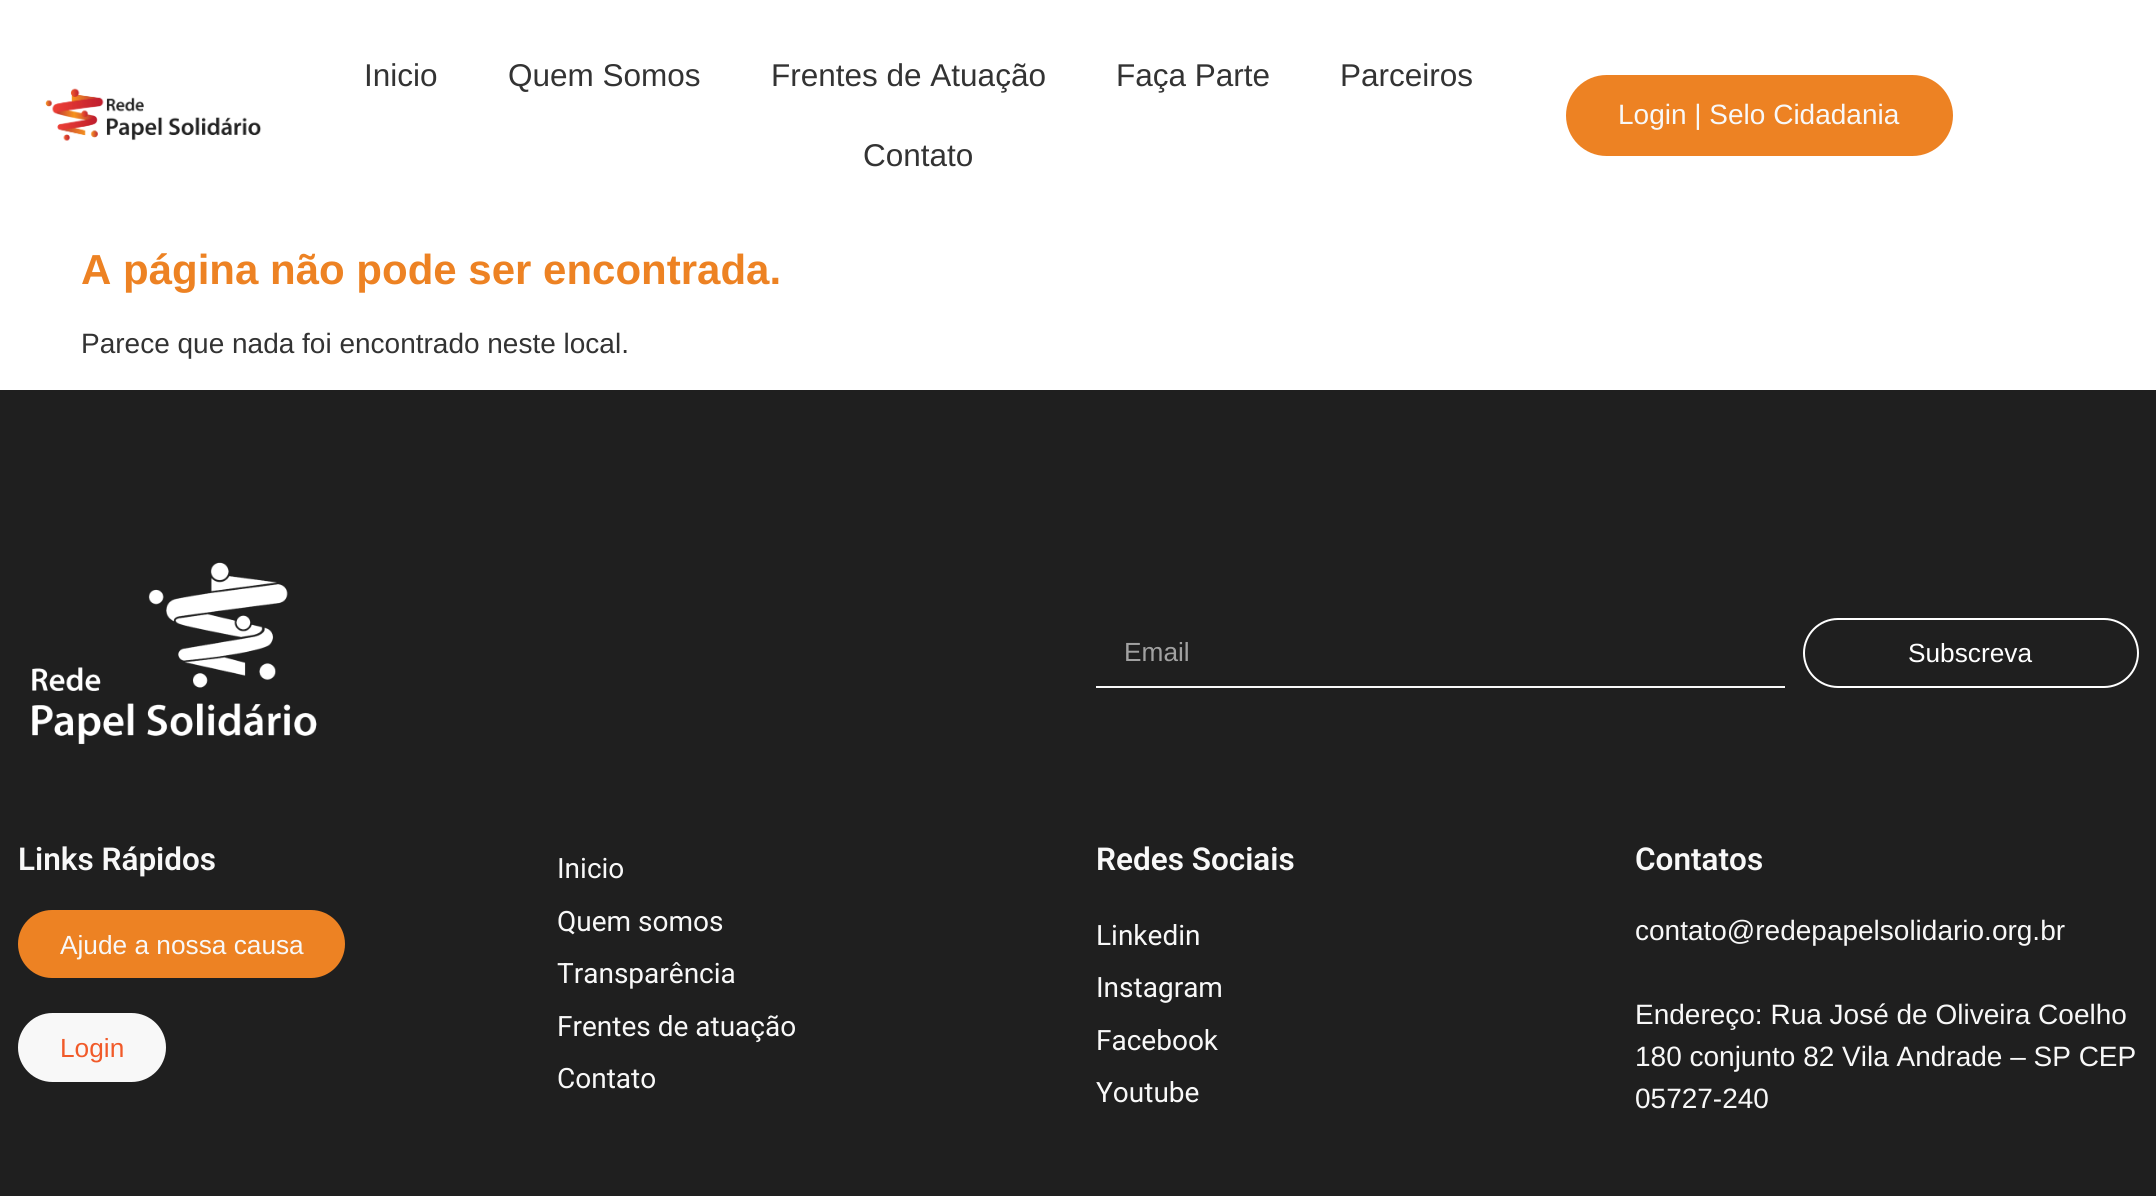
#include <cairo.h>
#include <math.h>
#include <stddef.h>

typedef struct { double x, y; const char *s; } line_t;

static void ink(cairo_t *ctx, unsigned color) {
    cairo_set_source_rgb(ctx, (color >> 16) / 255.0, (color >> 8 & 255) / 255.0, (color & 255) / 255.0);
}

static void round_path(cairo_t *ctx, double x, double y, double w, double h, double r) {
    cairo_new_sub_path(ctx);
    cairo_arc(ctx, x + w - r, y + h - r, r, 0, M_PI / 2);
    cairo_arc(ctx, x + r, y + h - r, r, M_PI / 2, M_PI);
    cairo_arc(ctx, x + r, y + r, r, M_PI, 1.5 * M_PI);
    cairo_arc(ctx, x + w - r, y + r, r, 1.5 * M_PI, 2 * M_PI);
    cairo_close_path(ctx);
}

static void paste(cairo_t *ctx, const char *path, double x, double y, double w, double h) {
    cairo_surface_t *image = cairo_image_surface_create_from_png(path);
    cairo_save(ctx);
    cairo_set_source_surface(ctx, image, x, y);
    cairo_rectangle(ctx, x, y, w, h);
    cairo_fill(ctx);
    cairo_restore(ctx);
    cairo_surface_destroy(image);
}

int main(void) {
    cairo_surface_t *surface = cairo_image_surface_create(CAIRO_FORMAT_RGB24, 2156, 1196);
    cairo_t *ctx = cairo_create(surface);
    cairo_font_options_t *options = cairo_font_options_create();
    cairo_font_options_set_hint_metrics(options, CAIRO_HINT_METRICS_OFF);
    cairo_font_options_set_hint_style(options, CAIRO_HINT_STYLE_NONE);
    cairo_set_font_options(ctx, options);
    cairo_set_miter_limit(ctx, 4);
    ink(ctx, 0xFFFFFF);
    cairo_paint(ctx);
    paste(ctx, "media/1.png", 45, 88, 217, 53);
    cairo_select_font_face(ctx, "Liberation Sans", CAIRO_FONT_SLANT_NORMAL, CAIRO_FONT_WEIGHT_NORMAL);
    cairo_set_font_size(ctx, 31.5);
    ink(ctx, 0x333333);
    {
        static const line_t items[] = {
            {364, 86, "Inicio"},
            {508, 86, "Quem Somos"},
            {771, 86, "Frentes de Atuação"},
            {1116, 86, "Faça Parte"},
            {1340, 86, "Parceiros"},
            {863, 166, "Contato"},
        };
        for (size_t i = 0; i < sizeof items / sizeof *items; i++) {
            cairo_move_to(ctx, items[i].x, items[i].y);
            cairo_show_text(ctx, items[i].s);
        }
    }
    ink(ctx, 0xED8223);
    round_path(ctx, 1566, 75, 387, 81, 40.5);
    cairo_fill(ctx);
    cairo_set_font_size(ctx, 28);
    ink(ctx, 0xF8F8F8);
    cairo_move_to(ctx, 1618, 124);
    cairo_show_text(ctx, "Login | Selo Cidadania");
    cairo_select_font_face(ctx, "Liberation Sans", CAIRO_FONT_SLANT_NORMAL, CAIRO_FONT_WEIGHT_BOLD);
    cairo_set_font_size(ctx, 42);
    ink(ctx, 0xED8223);
    cairo_move_to(ctx, 81, 284);
    cairo_show_text(ctx, "A página não pode ser encontrada.");
    cairo_select_font_face(ctx, "Liberation Sans", CAIRO_FONT_SLANT_NORMAL, CAIRO_FONT_WEIGHT_NORMAL);
    cairo_set_font_size(ctx, 28);
    ink(ctx, 0x333333);
    cairo_move_to(ctx, 81, 353);
    cairo_show_text(ctx, "Parece que nada foi encontrado neste local.");
    ink(ctx, 0x1F1F1F);
    cairo_rectangle(ctx, 0, 390, 2156, 806);
    cairo_fill(ctx);
    paste(ctx, "media/2.png", 32, 562, 285, 183);
    ink(ctx, 0xF8F8F8);
    cairo_rectangle(ctx, 1096, 686, 689, 2);
    cairo_fill(ctx);
    cairo_set_font_size(ctx, 26.25);
    ink(ctx, 0xA1A1A1);
    cairo_move_to(ctx, 1124, 661);
    cairo_show_text(ctx, "Email");
    round_path(ctx, 1804, 619, 334, 68, 34);
    ink(ctx, 0xFFFFFF);
    cairo_stroke(ctx);
    cairo_move_to(ctx, 1908, 662);
    cairo_show_text(ctx, "Subscreva");
    cairo_select_font_face(ctx, "Roboto SemiBold", CAIRO_FONT_SLANT_NORMAL, CAIRO_FONT_WEIGHT_NORMAL);
    cairo_set_font_size(ctx, 31.5);
    ink(ctx, 0xF8F8F8);
    cairo_move_to(ctx, 18, 870);
    cairo_show_text(ctx, "Links Rápidos");
    ink(ctx, 0xED8223);
    round_path(ctx, 18, 910, 327, 68, 34);
    cairo_fill(ctx);
    cairo_select_font_face(ctx, "Liberation Sans", CAIRO_FONT_SLANT_NORMAL, CAIRO_FONT_WEIGHT_NORMAL);
    cairo_set_font_size(ctx, 26.25);
    ink(ctx, 0xF8F8F8);
    cairo_move_to(ctx, 60, 954);
    cairo_show_text(ctx, "Ajude a nossa causa");
    round_path(ctx, 18, 1013, 148, 69, 34.5);
    cairo_fill(ctx);
    ink(ctx, 0xF15A29);
    cairo_move_to(ctx, 60, 1057);
    cairo_show_text(ctx, "Login");
    cairo_select_font_face(ctx, "Roboto", CAIRO_FONT_SLANT_NORMAL, CAIRO_FONT_WEIGHT_NORMAL);
    cairo_set_font_size(ctx, 28);
    ink(ctx, 0xF8F8F8);
    {
        static const line_t items[] = {
            {557, 878, "Inicio"},
            {557, 931, "Quem somos"},
            {557, 983, "Transparência"},
            {557, 1036, "Frentes de atuação"},
            {557, 1088, "Contato"},
        };
        for (size_t i = 0; i < sizeof items / sizeof *items; i++) {
            cairo_move_to(ctx, items[i].x, items[i].y);
            cairo_show_text(ctx, items[i].s);
        }
    }
    cairo_select_font_face(ctx, "Roboto SemiBold", CAIRO_FONT_SLANT_NORMAL, CAIRO_FONT_WEIGHT_NORMAL);
    cairo_set_font_size(ctx, 31.5);
    cairo_move_to(ctx, 1096, 870);
    cairo_show_text(ctx, "Redes Sociais");
    cairo_select_font_face(ctx, "Roboto", CAIRO_FONT_SLANT_NORMAL, CAIRO_FONT_WEIGHT_NORMAL);
    cairo_set_font_size(ctx, 28);
    {
        static const line_t items[] = {
            {1096, 945, "Linkedin"},
            {1096, 997, "Instagram"},
            {1096, 1050, "Facebook"},
            {1096, 1102, "Youtube"},
        };
        for (size_t i = 0; i < sizeof items / sizeof *items; i++) {
            cairo_move_to(ctx, items[i].x, items[i].y);
            cairo_show_text(ctx, items[i].s);
        }
    }
    cairo_select_font_face(ctx, "Roboto SemiBold", CAIRO_FONT_SLANT_NORMAL, CAIRO_FONT_WEIGHT_NORMAL);
    cairo_set_font_size(ctx, 31.5);
    cairo_move_to(ctx, 1635, 870);
    cairo_show_text(ctx, "Contatos");
    cairo_select_font_face(ctx, "Liberation Sans", CAIRO_FONT_SLANT_NORMAL, CAIRO_FONT_WEIGHT_NORMAL);
    cairo_set_font_size(ctx, 28);
    {
        static const line_t items[] = {
            {1635, 940, "contato@redepapelsolidario.org.br"},
            {1635, 1024, "Endereço: Rua José de Oliveira Coelho"},
            {1635, 1066, "180 conjunto 82 Vila Andrade – SP CEP"},
            {1635, 1108, "05727-240"},
        };
        for (size_t i = 0; i < sizeof items / sizeof *items; i++) {
            cairo_move_to(ctx, items[i].x, items[i].y);
            cairo_show_text(ctx, items[i].s);
        }
    }
    cairo_surface_write_to_png(surface, "image.png");
    cairo_font_options_destroy(options);
    cairo_destroy(ctx);
    cairo_surface_destroy(surface);
    return 0;
}
